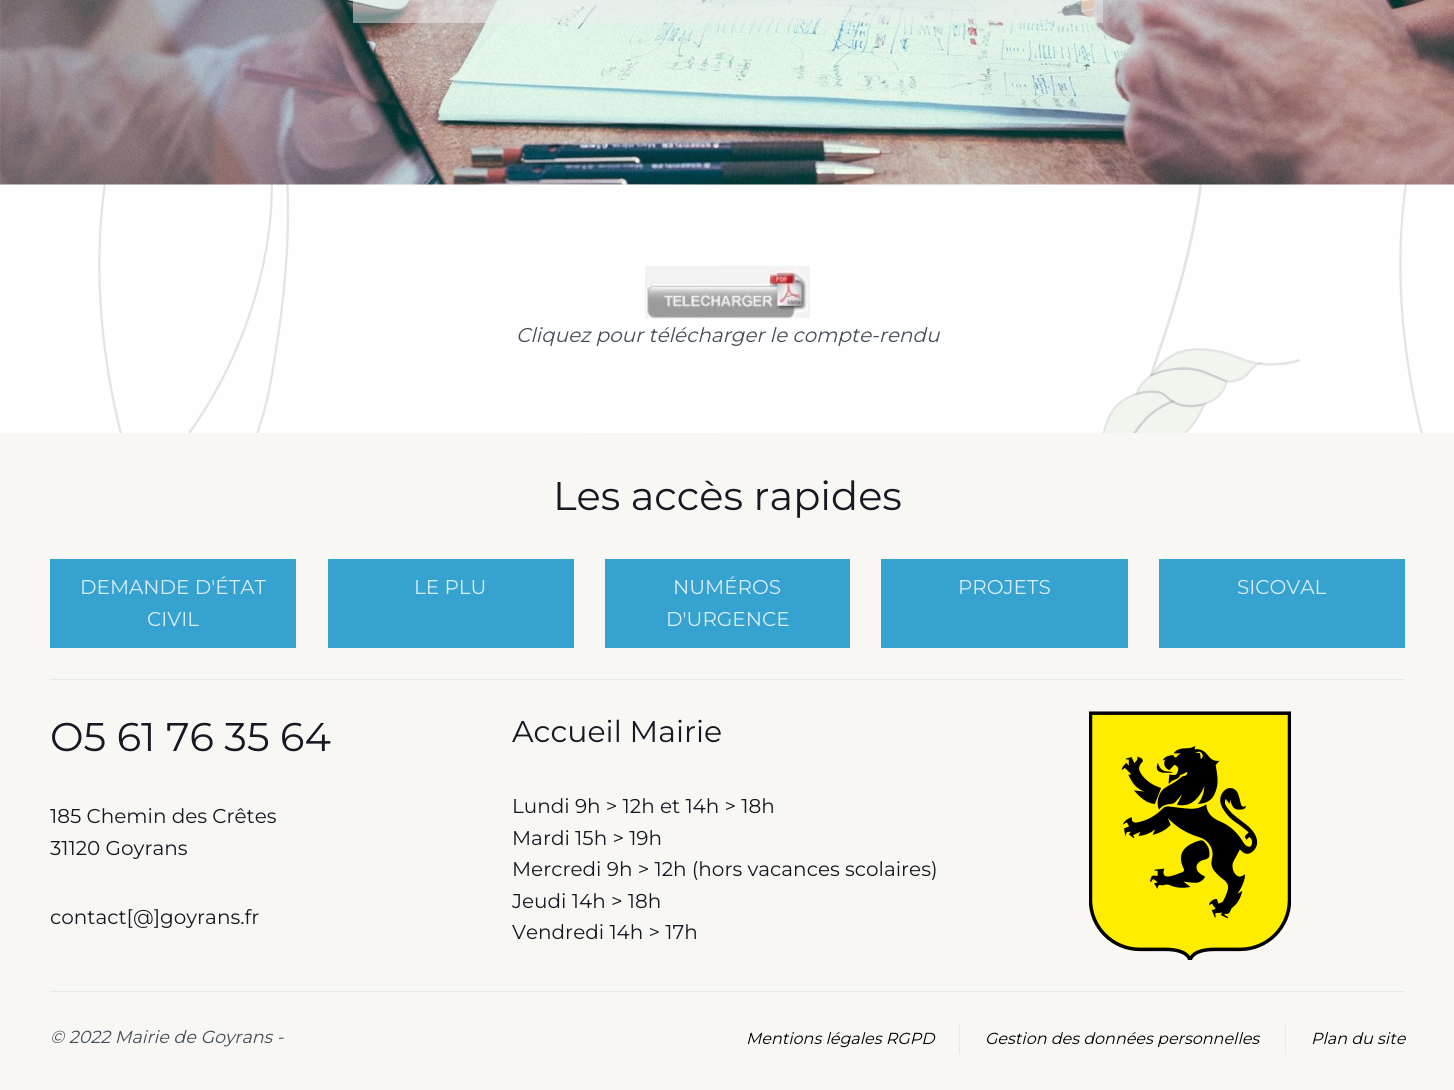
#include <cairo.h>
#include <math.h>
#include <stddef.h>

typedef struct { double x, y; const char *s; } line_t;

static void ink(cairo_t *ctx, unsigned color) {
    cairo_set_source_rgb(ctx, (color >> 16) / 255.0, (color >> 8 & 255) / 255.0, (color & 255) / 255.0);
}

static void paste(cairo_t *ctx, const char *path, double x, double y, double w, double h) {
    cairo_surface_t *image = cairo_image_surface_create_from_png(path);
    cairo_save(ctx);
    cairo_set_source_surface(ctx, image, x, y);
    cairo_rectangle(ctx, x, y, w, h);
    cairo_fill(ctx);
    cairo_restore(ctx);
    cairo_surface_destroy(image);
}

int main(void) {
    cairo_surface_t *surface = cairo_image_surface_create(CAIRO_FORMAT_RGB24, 1454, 1090);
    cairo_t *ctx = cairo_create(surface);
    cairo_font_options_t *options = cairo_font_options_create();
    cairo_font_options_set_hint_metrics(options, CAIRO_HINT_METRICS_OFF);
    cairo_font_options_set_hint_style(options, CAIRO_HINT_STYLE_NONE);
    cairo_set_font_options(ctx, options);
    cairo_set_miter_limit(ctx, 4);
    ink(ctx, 0xFFFFFF);
    cairo_paint(ctx);
    paste(ctx, "media/1.png", 0, 184, 1454, 249);
    paste(ctx, "media/2.png", 0, 0, 1454, 185);
    cairo_set_source_rgba(ctx, 0.937, 0.937, 0.937, 0.5);
    cairo_rectangle(ctx, 353, 0, 750, 23);
    cairo_fill(ctx);
    paste(ctx, "media/3.png", 645, 265, 165, 54);
    cairo_select_font_face(ctx, "Montserrat Thin", CAIRO_FONT_SLANT_ITALIC, CAIRO_FONT_WEIGHT_NORMAL);
    cairo_set_font_size(ctx, 20);
    ink(ctx, 0x444D58);
    cairo_move_to(ctx, 516, 342);
    cairo_show_text(ctx, "Cliquez pour télécharger le compte-rendu");
    ink(ctx, 0xF8F7F3);
    cairo_rectangle(ctx, 0, 433, 1454, 657);
    cairo_fill(ctx);
    cairo_select_font_face(ctx, "Montserrat Thin", CAIRO_FONT_SLANT_NORMAL, CAIRO_FONT_WEIGHT_NORMAL);
    cairo_set_font_size(ctx, 40);
    ink(ctx, 0x171822);
    cairo_move_to(ctx, 553, 510);
    cairo_show_text(ctx, "Les accès rapides");
    ink(ctx, 0x36A2CF);
    cairo_rectangle(ctx, 50, 559, 246, 89);
    cairo_fill(ctx);
    cairo_set_font_size(ctx, 20);
    ink(ctx, 0xD7ECF5);
    cairo_move_to(ctx, 80, 594);
    cairo_show_text(ctx, "DEMANDE D'ÉTAT");
    cairo_move_to(ctx, 147, 626);
    cairo_show_text(ctx, "CIVIL");
    ink(ctx, 0x36A2CF);
    cairo_rectangle(ctx, 328, 559, 246, 89);
    cairo_fill(ctx);
    ink(ctx, 0xD7ECF5);
    cairo_move_to(ctx, 414, 594);
    cairo_show_text(ctx, "LE PLU");
    ink(ctx, 0x36A2CF);
    cairo_rectangle(ctx, 605, 559, 245, 89);
    cairo_fill(ctx);
    ink(ctx, 0xD7ECF5);
    cairo_move_to(ctx, 673, 594);
    cairo_show_text(ctx, "NUMÉROS");
    cairo_move_to(ctx, 666, 626);
    cairo_show_text(ctx, "D'URGENCE");
    ink(ctx, 0x36A2CF);
    cairo_rectangle(ctx, 881, 559, 247, 89);
    cairo_fill(ctx);
    ink(ctx, 0xD7ECF5);
    cairo_move_to(ctx, 958, 594);
    cairo_show_text(ctx, "PROJETS");
    ink(ctx, 0x36A2CF);
    cairo_rectangle(ctx, 1159, 559, 246, 89);
    cairo_fill(ctx);
    ink(ctx, 0xD7ECF5);
    cairo_move_to(ctx, 1237, 594);
    cairo_show_text(ctx, "SICOVAL");
    ink(ctx, 0xE7E9E7);
    cairo_rectangle(ctx, 50, 679, 1355, 1);
    cairo_fill(ctx);
    cairo_set_font_size(ctx, 40);
    ink(ctx, 0x171822);
    cairo_move_to(ctx, 50, 751);
    cairo_show_text(ctx, "O5 61 76 35 64");
    cairo_set_font_size(ctx, 20);
    {
        static const line_t items[] = {
            {50, 823, "185 Chemin des Crêtes"},
            {50, 855, "31120 Goyrans"},
            {50, 924, "contact[@]goyrans.fr"},
        };
        for (size_t i = 0; i < sizeof items / sizeof *items; i++) {
            cairo_move_to(ctx, items[i].x, items[i].y);
            cairo_show_text(ctx, items[i].s);
        }
    }
    cairo_set_font_size(ctx, 30);
    cairo_move_to(ctx, 512, 742);
    cairo_show_text(ctx, "Accueil Mairie");
    cairo_set_font_size(ctx, 20);
    {
        static const line_t items[] = {
            {512, 813, "Lundi 9h > 12h et 14h > 18h"},
            {512, 845, "Mardi 15h > 19h"},
            {512, 876, "Mercredi 9h > 12h (hors vacances scolaires)"},
            {512, 908, "Jeudi 14h > 18h"},
            {512, 939, "Vendredi 14h > 17h"},
        };
        for (size_t i = 0; i < sizeof items / sizeof *items; i++) {
            cairo_move_to(ctx, items[i].x, items[i].y);
            cairo_show_text(ctx, items[i].s);
        }
    }
    paste(ctx, "media/4.png", 1089, 711, 202, 249);
    ink(ctx, 0xE7E9E7);
    cairo_rectangle(ctx, 50, 991, 1355, 1);
    cairo_fill(ctx);
    cairo_select_font_face(ctx, "Montserrat Thin", CAIRO_FONT_SLANT_ITALIC, CAIRO_FONT_WEIGHT_NORMAL);
    cairo_set_font_size(ctx, 17.5);
    ink(ctx, 0x444D58);
    cairo_move_to(ctx, 50, 1043);
    cairo_show_text(ctx, "© 2022 Mairie de Goyrans -");
    cairo_set_font_size(ctx, 16);
    ink(ctx, 0x000000);
    cairo_move_to(ctx, 746, 1044);
    cairo_show_text(ctx, "Mentions légales RGPD");
    ink(ctx, 0xE7E9E7);
    cairo_rectangle(ctx, 959, 1024, 1, 30);
    cairo_fill(ctx);
    ink(ctx, 0x000000);
    cairo_move_to(ctx, 985, 1044);
    cairo_show_text(ctx, "Gestion des données personnelles");
    ink(ctx, 0xE7E9E7);
    cairo_rectangle(ctx, 1285, 1024, 1, 30);
    cairo_fill(ctx);
    ink(ctx, 0x000000);
    cairo_move_to(ctx, 1311, 1044);
    cairo_show_text(ctx, "Plan du site");
    cairo_surface_write_to_png(surface, "image.png");
    cairo_font_options_destroy(options);
    cairo_destroy(ctx);
    cairo_surface_destroy(surface);
    return 0;
}
